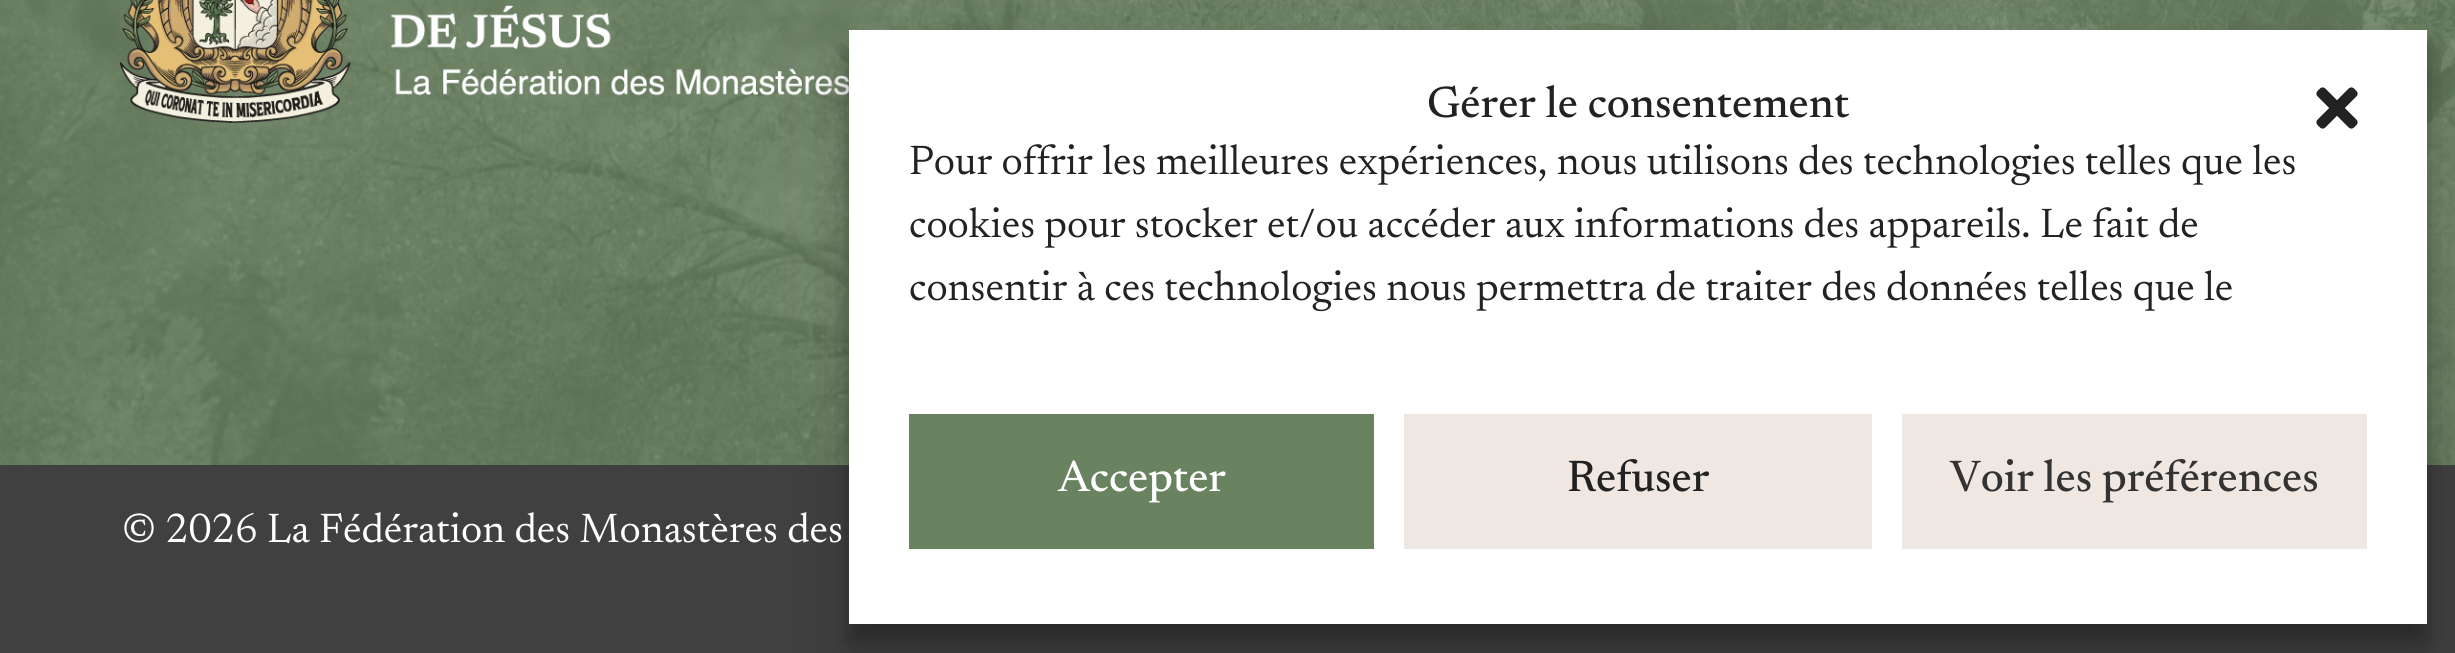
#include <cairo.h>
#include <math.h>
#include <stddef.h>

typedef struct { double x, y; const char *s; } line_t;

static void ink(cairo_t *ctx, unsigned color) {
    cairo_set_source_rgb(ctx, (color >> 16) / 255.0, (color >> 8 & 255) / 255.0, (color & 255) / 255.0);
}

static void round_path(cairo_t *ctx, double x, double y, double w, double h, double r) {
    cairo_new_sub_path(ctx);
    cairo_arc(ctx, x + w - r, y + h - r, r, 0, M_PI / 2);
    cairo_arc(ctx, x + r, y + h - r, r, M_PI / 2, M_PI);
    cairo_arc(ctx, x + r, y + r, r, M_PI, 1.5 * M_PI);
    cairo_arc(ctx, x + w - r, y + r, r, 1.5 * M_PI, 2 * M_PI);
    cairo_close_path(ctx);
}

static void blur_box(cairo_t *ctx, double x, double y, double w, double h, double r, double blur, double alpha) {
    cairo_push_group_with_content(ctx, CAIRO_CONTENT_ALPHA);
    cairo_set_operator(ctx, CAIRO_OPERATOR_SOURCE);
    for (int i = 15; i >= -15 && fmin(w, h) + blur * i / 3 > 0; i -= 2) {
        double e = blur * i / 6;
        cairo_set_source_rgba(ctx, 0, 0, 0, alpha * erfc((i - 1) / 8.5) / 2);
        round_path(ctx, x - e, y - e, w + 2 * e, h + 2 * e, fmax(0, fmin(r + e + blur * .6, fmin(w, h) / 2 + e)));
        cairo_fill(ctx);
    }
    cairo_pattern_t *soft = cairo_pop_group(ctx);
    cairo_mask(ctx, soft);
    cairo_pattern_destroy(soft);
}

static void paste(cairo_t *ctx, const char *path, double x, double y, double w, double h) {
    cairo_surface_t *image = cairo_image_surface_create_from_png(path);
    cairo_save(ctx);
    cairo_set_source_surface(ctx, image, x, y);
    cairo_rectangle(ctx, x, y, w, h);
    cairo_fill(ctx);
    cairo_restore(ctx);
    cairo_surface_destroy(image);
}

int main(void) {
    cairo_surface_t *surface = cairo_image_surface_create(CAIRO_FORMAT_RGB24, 2455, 653);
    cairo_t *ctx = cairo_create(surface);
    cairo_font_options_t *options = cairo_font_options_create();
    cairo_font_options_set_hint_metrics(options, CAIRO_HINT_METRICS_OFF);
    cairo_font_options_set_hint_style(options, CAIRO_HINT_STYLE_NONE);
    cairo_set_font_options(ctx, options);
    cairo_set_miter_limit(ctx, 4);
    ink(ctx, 0xFFFFFF);
    cairo_paint(ctx);
    paste(ctx, "media/2.png", 0, 0, 2455, 465);
    paste(ctx, "media/3.png", 120, 0, 729, 123);
    ink(ctx, 0x404040);
    cairo_rectangle(ctx, 0, 465, 2455, 188);
    cairo_fill(ctx);
    ink(ctx, 0x000000);
    blur_box(ctx, 849, 48, 1578, 594, 0, 9, 0.23);
    blur_box(ctx, 849, 60, 1578, 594, 0, 30, 0.19);
    ink(ctx, 0xFFFFFF);
    cairo_rectangle(ctx, 849, 30, 1578, 594);
    cairo_fill(ctx);
    cairo_select_font_face(ctx, "Newsreader Medium", CAIRO_FONT_SLANT_NORMAL, CAIRO_FONT_WEIGHT_NORMAL);
    cairo_set_font_size(ctx, 45);
    ink(ctx, 0x222222);
    cairo_move_to(ctx, 1427, 117);
    cairo_show_text(ctx, "Gérer le consentement");
    paste(ctx, "media/1.png", 2316, 87, 42, 42);
    cairo_select_font_face(ctx, "Newsreader", CAIRO_FONT_SLANT_NORMAL, CAIRO_FONT_WEIGHT_NORMAL);
    cairo_set_font_size(ctx, 42);
    {
        static const line_t items[] = {
            {909, 174, "Pour offrir les meilleures expériences, nous utilisons des technologies telles que les"},
            {909, 237, "cookies pour stocker et/ou accéder aux informations des appareils. Le fait de"},
            {909, 300, "consentir à ces technologies nous permettra de traiter des données telles que le"},
        };
        for (size_t i = 0; i < sizeof items / sizeof *items; i++) {
            cairo_move_to(ctx, items[i].x, items[i].y);
            cairo_show_text(ctx, items[i].s);
        }
    }
    ink(ctx, 0x69825F);
    cairo_rectangle(ctx, 909, 414, 465, 135);
    cairo_fill(ctx);
    cairo_select_font_face(ctx, "Newsreader Medium", CAIRO_FONT_SLANT_NORMAL, CAIRO_FONT_WEIGHT_NORMAL);
    cairo_set_font_size(ctx, 45);
    ink(ctx, 0xFFFFFF);
    cairo_move_to(ctx, 1058, 491);
    cairo_show_text(ctx, "Accepter");
    ink(ctx, 0xEFE8E2);
    cairo_rectangle(ctx, 1404, 414, 468, 135);
    cairo_fill(ctx);
    ink(ctx, 0x222222);
    cairo_move_to(ctx, 1567, 491);
    cairo_show_text(ctx, "Refuser");
    ink(ctx, 0xEFE8E2);
    cairo_rectangle(ctx, 1902, 414, 465, 135);
    cairo_fill(ctx);
    ink(ctx, 0x333333);
    cairo_move_to(ctx, 1950, 491);
    cairo_show_text(ctx, "Voir les préférences");
    cairo_select_font_face(ctx, "Newsreader", CAIRO_FONT_SLANT_NORMAL, CAIRO_FONT_WEIGHT_NORMAL);
    cairo_set_font_size(ctx, 42);
    ink(ctx, 0xFFFFFF);
    cairo_move_to(ctx, 122, 542);
    cairo_show_text(ctx, "© 2026 La Fédération des Monastères des");
    cairo_surface_write_to_png(surface, "image.png");
    cairo_font_options_destroy(options);
    cairo_destroy(ctx);
    cairo_surface_destroy(surface);
    return 0;
}
